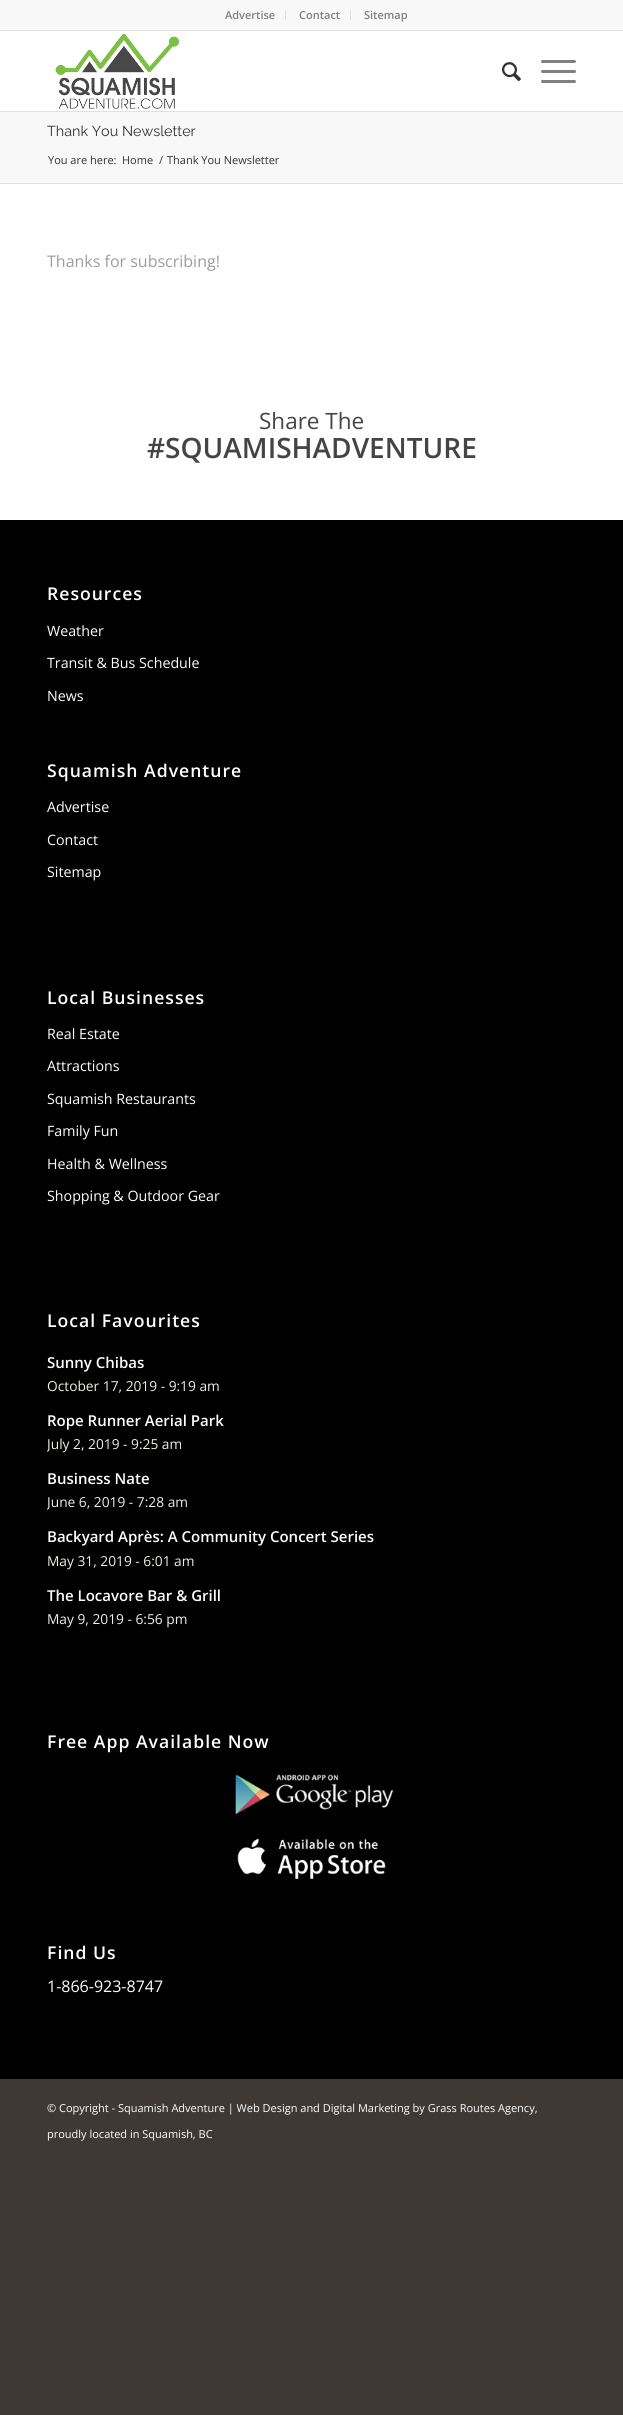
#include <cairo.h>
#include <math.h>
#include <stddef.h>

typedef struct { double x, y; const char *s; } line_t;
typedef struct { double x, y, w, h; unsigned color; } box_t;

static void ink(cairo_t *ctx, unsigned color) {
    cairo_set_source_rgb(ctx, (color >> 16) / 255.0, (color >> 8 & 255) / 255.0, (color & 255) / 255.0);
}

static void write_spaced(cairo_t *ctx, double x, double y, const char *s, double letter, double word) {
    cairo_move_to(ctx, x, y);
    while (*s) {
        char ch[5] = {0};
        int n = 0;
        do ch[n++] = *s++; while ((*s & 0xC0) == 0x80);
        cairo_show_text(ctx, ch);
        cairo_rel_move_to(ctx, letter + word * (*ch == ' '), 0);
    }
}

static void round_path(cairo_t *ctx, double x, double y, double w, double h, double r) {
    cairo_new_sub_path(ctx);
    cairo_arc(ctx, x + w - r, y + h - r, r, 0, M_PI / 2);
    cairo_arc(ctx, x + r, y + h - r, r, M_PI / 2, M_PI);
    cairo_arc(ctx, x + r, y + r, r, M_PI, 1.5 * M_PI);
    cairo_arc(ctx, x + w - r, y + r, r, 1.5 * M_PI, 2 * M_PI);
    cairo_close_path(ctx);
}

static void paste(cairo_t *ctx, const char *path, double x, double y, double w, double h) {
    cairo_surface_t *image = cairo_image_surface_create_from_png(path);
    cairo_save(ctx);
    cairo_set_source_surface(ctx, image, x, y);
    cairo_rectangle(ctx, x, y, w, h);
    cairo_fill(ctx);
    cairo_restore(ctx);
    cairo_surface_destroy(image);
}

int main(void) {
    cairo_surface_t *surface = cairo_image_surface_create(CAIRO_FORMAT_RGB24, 623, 2415);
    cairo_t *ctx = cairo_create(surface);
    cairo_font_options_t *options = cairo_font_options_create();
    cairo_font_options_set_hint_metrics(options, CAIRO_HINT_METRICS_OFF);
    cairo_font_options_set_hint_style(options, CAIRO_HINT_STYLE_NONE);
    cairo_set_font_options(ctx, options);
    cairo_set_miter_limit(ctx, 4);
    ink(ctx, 0x3E3935);
    cairo_paint(ctx);
    {
        static const box_t items[] = {
            {0, 0, 623, 30, 0xF8F8F8},
            {0, 30, 623, 1, 0xE1E1E1},
            {285, 10, 1, 10, 0xE1E1E1},
        };
        for (size_t i = 0; i < sizeof items / sizeof *items; i++) {
            ink(ctx, items[i].color);
            cairo_rectangle(ctx, items[i].x, items[i].y, items[i].w, items[i].h);
            cairo_fill(ctx);
        }
    }
    cairo_select_font_face(ctx, "Open Sans SemiBold", CAIRO_FONT_SLANT_NORMAL, CAIRO_FONT_WEIGHT_NORMAL);
    cairo_set_font_size(ctx, 11);
    ink(ctx, 0x808080);
    cairo_move_to(ctx, 225, 19);
    cairo_show_text(ctx, "Advertise");
    ink(ctx, 0xE1E1E1);
    cairo_rectangle(ctx, 350, 10, 1, 10);
    cairo_fill(ctx);
    ink(ctx, 0x808080);
    cairo_move_to(ctx, 299, 19);
    cairo_show_text(ctx, "Contact");
    cairo_move_to(ctx, 364, 19);
    cairo_show_text(ctx, "Sitemap");
    ink(ctx, 0xFFFFFF);
    cairo_rectangle(ctx, 0, 31, 623, 80);
    cairo_fill(ctx);
    ink(ctx, 0xE1E1E1);
    cairo_rectangle(ctx, 0, 111, 623, 1);
    cairo_fill(ctx);
    paste(ctx, "media/1.png", 55, 33, 124, 76);
    paste(ctx, "media/2.png", 502, 62, 19, 20);
    ink(ctx, 0x808080);
    round_path(ctx, 541, 70, 35, 3, 1.5);
    cairo_fill(ctx);
    round_path(ctx, 541, 60, 35, 3, 1.5);
    cairo_fill(ctx);
    round_path(ctx, 541, 80, 35, 3, 1.5);
    cairo_fill(ctx);
    ink(ctx, 0xFFFFFF);
    cairo_rectangle(ctx, 0, 184, 623, 336);
    cairo_fill(ctx);
    ink(ctx, 0xF8F8F8);
    cairo_rectangle(ctx, 0, 112, 623, 71);
    cairo_fill(ctx);
    cairo_select_font_face(ctx, "Raleway", CAIRO_FONT_SLANT_NORMAL, CAIRO_FONT_WEIGHT_NORMAL);
    cairo_set_font_size(ctx, 14.4);
    ink(ctx, 0x333333);
    cairo_move_to(ctx, 47, 136);
    cairo_show_text(ctx, "Thank You Newsletter");
    cairo_select_font_face(ctx, "Open Sans", CAIRO_FONT_SLANT_NORMAL, CAIRO_FONT_WEIGHT_NORMAL);
    cairo_set_font_size(ctx, 11);
    {
        static const line_t items[] = {
            {48, 164, "You are here:"},
            {122, 164, "Home"},
            {159, 164, "/"},
            {167, 164, "Thank You Newsletter"},
        };
        for (size_t i = 0; i < sizeof items / sizeof *items; i++) {
            cairo_move_to(ctx, items[i].x, items[i].y);
            cairo_show_text(ctx, items[i].s);
        }
    }
    ink(ctx, 0xE1E1E1);
    cairo_rectangle(ctx, 0, 183, 623, 1);
    cairo_fill(ctx);
    cairo_set_font_size(ctx, 16);
    ink(ctx, 0x9C9C9C);
    cairo_move_to(ctx, 47, 267);
    cairo_show_text(ctx, "Thanks for subscribing!");
    cairo_set_font_size(ctx, 22.5);
    ink(ctx, 0x444444);
    cairo_move_to(ctx, 259, 429);
    cairo_show_text(ctx, "Share The");
    cairo_select_font_face(ctx, "Open Sans SemiBold", CAIRO_FONT_SLANT_NORMAL, CAIRO_FONT_WEIGHT_NORMAL);
    cairo_set_font_size(ctx, 28);
    cairo_move_to(ctx, 147, 458);
    cairo_show_text(ctx, "#SQUAMISHADVENTURE");
    ink(ctx, 0x000000);
    cairo_rectangle(ctx, 0, 520, 623, 1559);
    cairo_fill(ctx);
    cairo_set_font_size(ctx, 17.6);
    ink(ctx, 0xFFFFFF);
    write_spaced(ctx, 47, 600, "Resources", 1, 0);
    cairo_select_font_face(ctx, "Open Sans", CAIRO_FONT_SLANT_NORMAL, CAIRO_FONT_WEIGHT_NORMAL);
    cairo_set_font_size(ctx, 14.25);
    {
        static const line_t items[] = {
            {47, 636, "Weather"},
            {47, 668, "Transit & Bus Schedule"},
            {47, 701, "News"},
        };
        for (size_t i = 0; i < sizeof items / sizeof *items; i++) {
            cairo_move_to(ctx, items[i].x, items[i].y);
            cairo_show_text(ctx, items[i].s);
        }
    }
    cairo_select_font_face(ctx, "Open Sans SemiBold", CAIRO_FONT_SLANT_NORMAL, CAIRO_FONT_WEIGHT_NORMAL);
    cairo_set_font_size(ctx, 17.6);
    write_spaced(ctx, 47, 777, "Squamish Adventure", 1, 0);
    cairo_select_font_face(ctx, "Open Sans", CAIRO_FONT_SLANT_NORMAL, CAIRO_FONT_WEIGHT_NORMAL);
    cairo_set_font_size(ctx, 14.25);
    {
        static const line_t items[] = {
            {47, 812, "Advertise"},
            {47, 845, "Contact"},
            {47, 877, "Sitemap"},
        };
        for (size_t i = 0; i < sizeof items / sizeof *items; i++) {
            cairo_move_to(ctx, items[i].x, items[i].y);
            cairo_show_text(ctx, items[i].s);
        }
    }
    cairo_select_font_face(ctx, "Open Sans SemiBold", CAIRO_FONT_SLANT_NORMAL, CAIRO_FONT_WEIGHT_NORMAL);
    cairo_set_font_size(ctx, 17.6);
    write_spaced(ctx, 47, 1004, "Local Businesses", 1, 0);
    cairo_select_font_face(ctx, "Open Sans", CAIRO_FONT_SLANT_NORMAL, CAIRO_FONT_WEIGHT_NORMAL);
    cairo_set_font_size(ctx, 14.25);
    {
        static const line_t items[] = {
            {47, 1039, "Real Estate"},
            {47, 1071, "Attractions"},
            {47, 1104, "Squamish Restaurants"},
            {47, 1136, "Family Fun"},
            {47, 1169, "Health & Wellness"},
            {47, 1201, "Shopping & Outdoor Gear"},
        };
        for (size_t i = 0; i < sizeof items / sizeof *items; i++) {
            cairo_move_to(ctx, items[i].x, items[i].y);
            cairo_show_text(ctx, items[i].s);
        }
    }
    cairo_select_font_face(ctx, "Open Sans SemiBold", CAIRO_FONT_SLANT_NORMAL, CAIRO_FONT_WEIGHT_NORMAL);
    cairo_set_font_size(ctx, 17.6);
    write_spaced(ctx, 47, 1327, "Local Favourites", 1, 0);
    cairo_set_font_size(ctx, 15);
    cairo_move_to(ctx, 47, 1368);
    cairo_show_text(ctx, "Sunny Chibas");
    cairo_select_font_face(ctx, "Open Sans", CAIRO_FONT_SLANT_NORMAL, CAIRO_FONT_WEIGHT_NORMAL);
    cairo_set_font_size(ctx, 13.75);
    ink(ctx, 0xECF2E1);
    cairo_move_to(ctx, 47, 1391);
    cairo_show_text(ctx, "October 17, 2019 - 9:19 am");
    cairo_select_font_face(ctx, "Open Sans SemiBold", CAIRO_FONT_SLANT_NORMAL, CAIRO_FONT_WEIGHT_NORMAL);
    cairo_set_font_size(ctx, 15);
    ink(ctx, 0xFFFFFF);
    cairo_move_to(ctx, 47, 1426);
    cairo_show_text(ctx, "Rope Runner Aerial Park");
    cairo_save(ctx);
    cairo_rectangle(ctx, 47, 1409, 529, 46);
    cairo_clip(ctx);
    cairo_select_font_face(ctx, "Open Sans", CAIRO_FONT_SLANT_NORMAL, CAIRO_FONT_WEIGHT_NORMAL);
    cairo_set_font_size(ctx, 13.75);
    ink(ctx, 0xECF2E1);
    cairo_move_to(ctx, 47, 1449);
    cairo_show_text(ctx, "July 2, 2019 - 9:25 am");
    cairo_restore(ctx);
    cairo_move_to(ctx, 47, 1484);
    cairo_show_text(ctx, "Business Nate");
    cairo_save(ctx);
    cairo_rectangle(ctx, 47, 1467, 529, 46);
    cairo_clip(ctx);
    cairo_select_font_face(ctx, "Open Sans", CAIRO_FONT_SLANT_NORMAL, CAIRO_FONT_WEIGHT_NORMAL);
    cairo_set_font_size(ctx, 13.75);
    ink(ctx, 0xECF2E1);
    cairo_move_to(ctx, 47, 1507);
    cairo_show_text(ctx, "June 6, 2019 - 7:28 am");
    cairo_restore(ctx);
    cairo_move_to(ctx, 47, 1542);
    cairo_show_text(ctx, "Backyard Après: A Community Concert Series");
    cairo_select_font_face(ctx, "Open Sans", CAIRO_FONT_SLANT_NORMAL, CAIRO_FONT_WEIGHT_NORMAL);
    cairo_set_font_size(ctx, 13.75);
    ink(ctx, 0xECF2E1);
    cairo_move_to(ctx, 47, 1566);
    cairo_show_text(ctx, "May 31, 2019 - 6:01 am");
    cairo_select_font_face(ctx, "Open Sans SemiBold", CAIRO_FONT_SLANT_NORMAL, CAIRO_FONT_WEIGHT_NORMAL);
    cairo_set_font_size(ctx, 15);
    ink(ctx, 0xFFFFFF);
    cairo_move_to(ctx, 47, 1601);
    cairo_show_text(ctx, "The Locavore Bar & Grill");
    cairo_select_font_face(ctx, "Open Sans", CAIRO_FONT_SLANT_NORMAL, CAIRO_FONT_WEIGHT_NORMAL);
    cairo_set_font_size(ctx, 13.75);
    ink(ctx, 0xECF2E1);
    cairo_move_to(ctx, 47, 1624);
    cairo_show_text(ctx, "May 9, 2019 - 6:56 pm");
    cairo_select_font_face(ctx, "Open Sans SemiBold", CAIRO_FONT_SLANT_NORMAL, CAIRO_FONT_WEIGHT_NORMAL);
    cairo_set_font_size(ctx, 17.6);
    ink(ctx, 0xFFFFFF);
    write_spaced(ctx, 47, 1748, "Free App Available Now", 1, 0);
    paste(ctx, "media/3.png", 235, 1774, 159, 41);
    paste(ctx, "media/4.png", 237, 1838, 149, 41);
    write_spaced(ctx, 47, 1959, "Find Us", 1, 0);
    cairo_select_font_face(ctx, "Open Sans", CAIRO_FONT_SLANT_NORMAL, CAIRO_FONT_WEIGHT_NORMAL);
    cairo_set_font_size(ctx, 16);
    cairo_move_to(ctx, 47, 1992);
    cairo_show_text(ctx, "1-866-923-8747");
    cairo_set_font_size(ctx, 11);
    cairo_move_to(ctx, 47, 2112);
    cairo_show_text(ctx, "© Copyright - Squamish Adventure | Web Design and Digital Marketing by Grass Routes Agency,");
    cairo_move_to(ctx, 47, 2138);
    cairo_show_text(ctx, "proudly located in Squamish, BC");
    cairo_surface_write_to_png(surface, "image.png");
    cairo_font_options_destroy(options);
    cairo_destroy(ctx);
    cairo_surface_destroy(surface);
    return 0;
}
